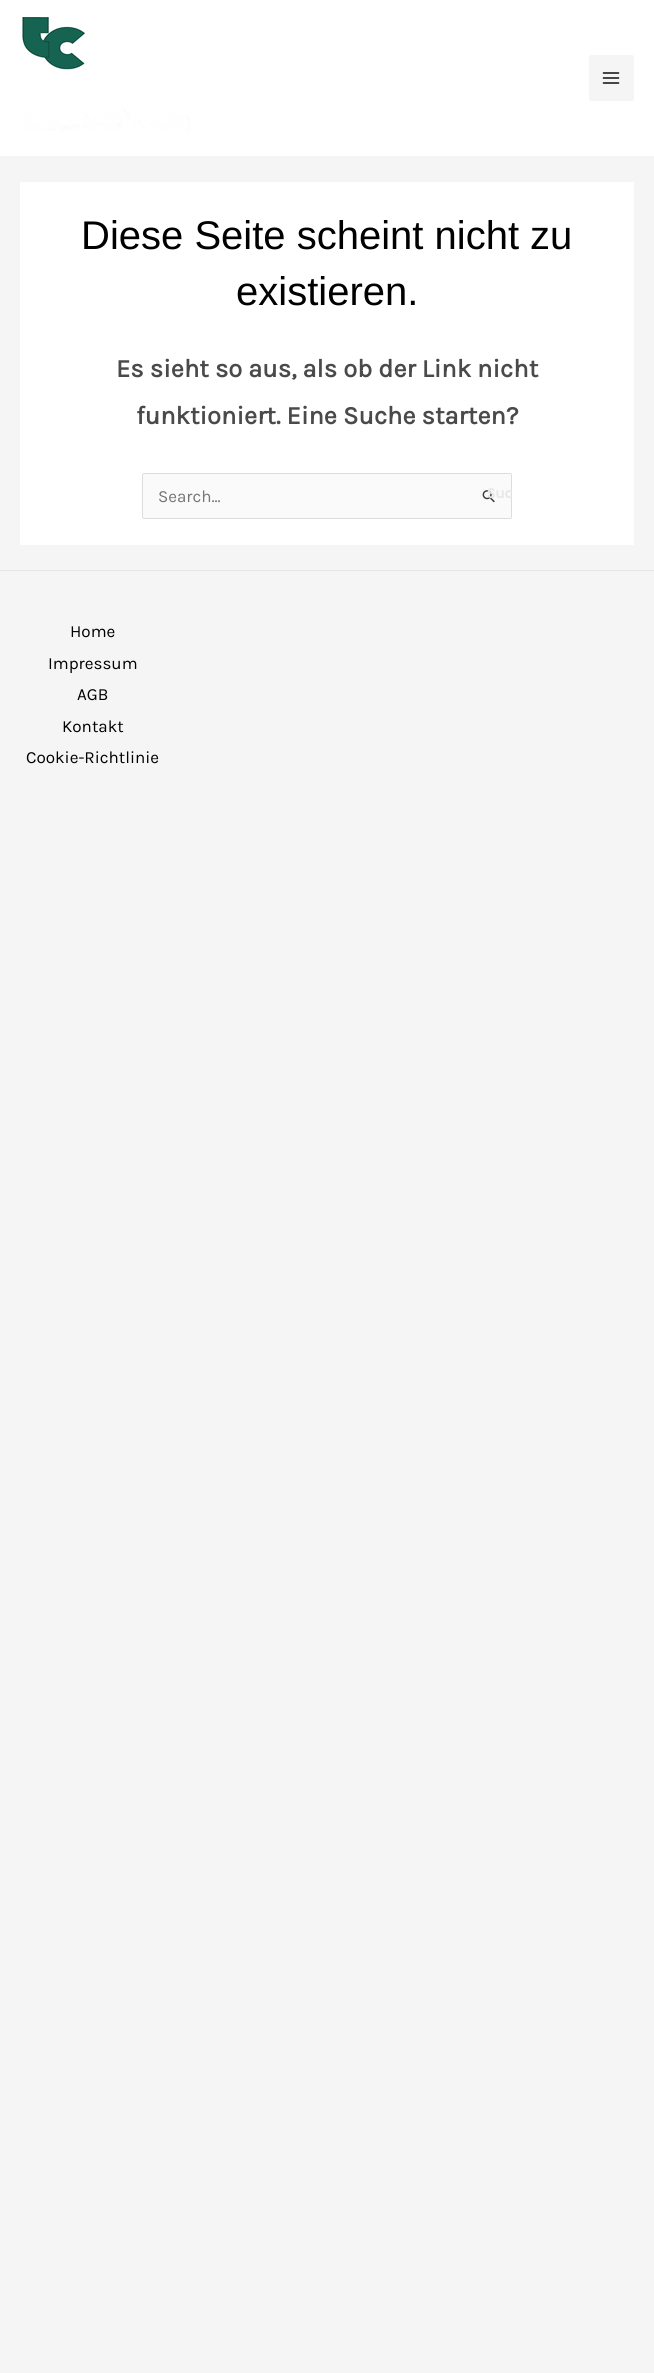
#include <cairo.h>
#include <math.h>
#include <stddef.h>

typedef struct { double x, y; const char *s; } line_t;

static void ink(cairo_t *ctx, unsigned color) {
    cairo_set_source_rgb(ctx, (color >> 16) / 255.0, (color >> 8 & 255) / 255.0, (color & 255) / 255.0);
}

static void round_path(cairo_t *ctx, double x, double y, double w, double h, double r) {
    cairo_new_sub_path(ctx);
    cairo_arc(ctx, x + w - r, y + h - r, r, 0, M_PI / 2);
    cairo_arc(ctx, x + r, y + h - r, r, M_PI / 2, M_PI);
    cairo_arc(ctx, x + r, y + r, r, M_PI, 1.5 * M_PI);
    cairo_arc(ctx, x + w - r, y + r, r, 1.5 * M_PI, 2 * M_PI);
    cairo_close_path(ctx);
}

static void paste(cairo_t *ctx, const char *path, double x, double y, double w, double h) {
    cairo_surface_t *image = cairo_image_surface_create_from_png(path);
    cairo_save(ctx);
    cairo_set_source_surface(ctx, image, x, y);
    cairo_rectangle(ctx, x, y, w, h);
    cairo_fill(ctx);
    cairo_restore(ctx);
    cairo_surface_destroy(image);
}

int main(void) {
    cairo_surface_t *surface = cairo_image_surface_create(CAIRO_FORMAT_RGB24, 654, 2373);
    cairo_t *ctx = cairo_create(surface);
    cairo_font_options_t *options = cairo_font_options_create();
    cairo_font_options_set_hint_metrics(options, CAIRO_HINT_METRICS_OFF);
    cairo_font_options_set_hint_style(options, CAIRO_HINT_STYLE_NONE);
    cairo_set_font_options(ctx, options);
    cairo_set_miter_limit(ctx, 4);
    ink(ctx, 0xF5F5F5);
    cairo_paint(ctx);
    ink(ctx, 0xFFFFFF);
    cairo_rectangle(ctx, 0, 0, 654, 156);
    cairo_fill(ctx);
    paste(ctx, "media/1.png", 22, 17, 169, 114);
    ink(ctx, 0xF5F5F5);
    round_path(ctx, 589, 55, 45, 46, 2);
    cairo_fill(ctx);
    paste(ctx, "media/2.png", 602, 72, 18, 12);
    ink(ctx, 0xFFFFFF);
    cairo_rectangle(ctx, 20, 182, 614, 363);
    cairo_fill(ctx);
    cairo_select_font_face(ctx, "Liberation Sans", CAIRO_FONT_SLANT_NORMAL, CAIRO_FONT_WEIGHT_NORMAL);
    cairo_set_font_size(ctx, 40);
    ink(ctx, 0x000000);
    cairo_move_to(ctx, 81, 249);
    cairo_show_text(ctx, "Diese Seite scheint nicht zu");
    cairo_move_to(ctx, 236, 305);
    cairo_show_text(ctx, "existieren.");
    cairo_select_font_face(ctx, "Karla", CAIRO_FONT_SLANT_NORMAL, CAIRO_FONT_WEIGHT_BOLD);
    cairo_set_font_size(ctx, 25.5);
    ink(ctx, 0x4A4A4A);
    cairo_move_to(ctx, 116, 377);
    cairo_show_text(ctx, "Es sieht so aus, als ob der Link nicht");
    cairo_move_to(ctx, 136, 424);
    cairo_show_text(ctx, "funktioniert. Eine Suche starten?");
    ink(ctx, 0xFAFAFA);
    round_path(ctx, 142.5, 473.5, 369, 45, 1.5);
    cairo_fill_preserve(ctx);
    ink(ctx, 0xDDDDDD);
    cairo_set_line_width(ctx, 1);
    cairo_stroke(ctx);
    cairo_select_font_face(ctx, "Karla", CAIRO_FONT_SLANT_NORMAL, CAIRO_FONT_WEIGHT_NORMAL);
    cairo_set_font_size(ctx, 17);
    ink(ctx, 0x757575);
    cairo_move_to(ctx, 158, 502);
    cairo_show_text(ctx, "Search...");
    paste(ctx, "media/3.png", 482, 490, 13, 13);
    cairo_save(ctx);
    round_path(ctx, 467, 473, 45, 40, 2);
    cairo_clip(ctx);
    cairo_select_font_face(ctx, "Poppins SemiBold", CAIRO_FONT_SLANT_NORMAL, CAIRO_FONT_WEIGHT_NORMAL);
    cairo_set_font_size(ctx, 14);
    ink(ctx, 0xE8E8E8);
    cairo_move_to(ctx, 487, 498);
    cairo_show_text(ctx, "Suc");
    cairo_restore(ctx);
    ink(ctx, 0xE6E6E6);
    cairo_rectangle(ctx, 0, 570, 654, 1);
    cairo_fill(ctx);
    ink(ctx, 0x000000);
    {
        static const line_t items[] = {
            {70, 637, "Home"},
            {48, 669, "Impressum"},
            {77, 700, "AGB"},
            {62, 732, "Kontakt"},
            {26, 763, "Cookie-Richtlinie"},
        };
        for (size_t i = 0; i < sizeof items / sizeof *items; i++) {
            cairo_move_to(ctx, items[i].x, items[i].y);
            cairo_show_text(ctx, items[i].s);
        }
    }
    cairo_surface_write_to_png(surface, "image.png");
    cairo_font_options_destroy(options);
    cairo_destroy(ctx);
    cairo_surface_destroy(surface);
    return 0;
}
